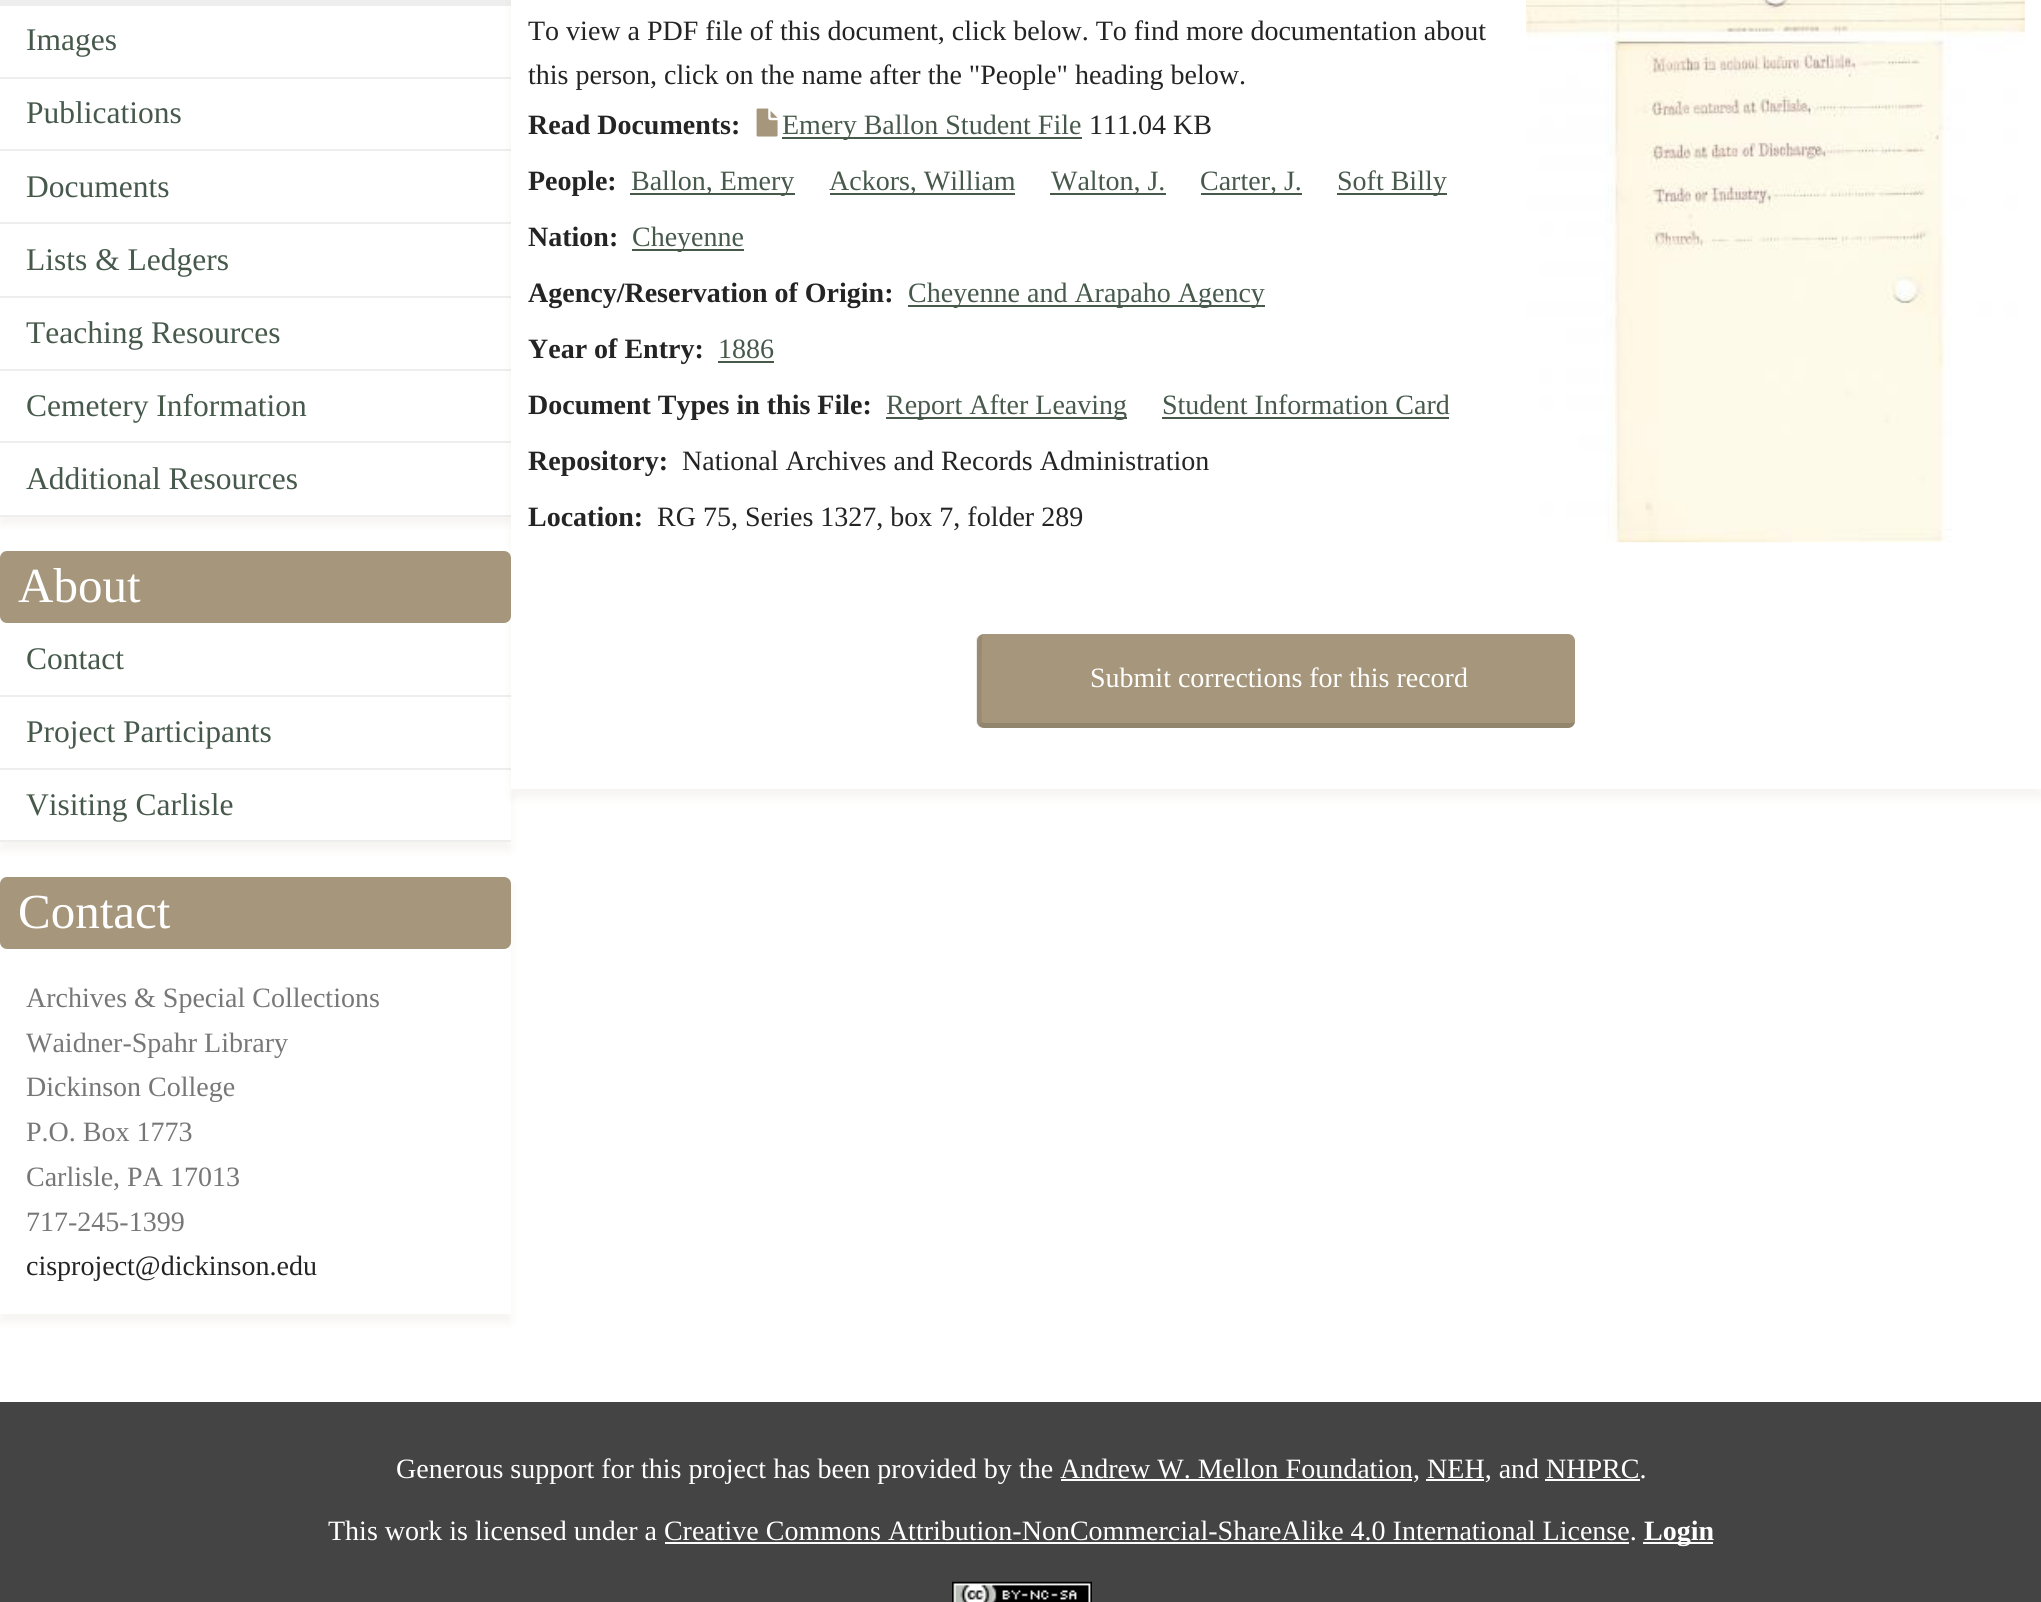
#include <cairo.h>
#include <math.h>
#include <stddef.h>

typedef struct { double x, y; const char *s; } line_t;
typedef struct { double x, y, w, h; unsigned color; } box_t;

static void ink(cairo_t *ctx, unsigned color) {
    cairo_set_source_rgb(ctx, (color >> 16) / 255.0, (color >> 8 & 255) / 255.0, (color & 255) / 255.0);
}

static void round_path(cairo_t *ctx, double x, double y, double w, double h, double r) {
    cairo_new_sub_path(ctx);
    cairo_arc(ctx, x + w - r, y + h - r, r, 0, M_PI / 2);
    cairo_arc(ctx, x + r, y + h - r, r, M_PI / 2, M_PI);
    cairo_arc(ctx, x + r, y + r, r, M_PI, 1.5 * M_PI);
    cairo_arc(ctx, x + w - r, y + r, r, 1.5 * M_PI, 2 * M_PI);
    cairo_close_path(ctx);
}

static void blur_box(cairo_t *ctx, double x, double y, double w, double h, double r, double blur, double alpha) {
    cairo_push_group_with_content(ctx, CAIRO_CONTENT_ALPHA);
    cairo_set_operator(ctx, CAIRO_OPERATOR_SOURCE);
    for (int i = 15; i >= -15 && fmin(w, h) + blur * i / 3 > 0; i -= 2) {
        double e = blur * i / 6;
        cairo_set_source_rgba(ctx, 0, 0, 0, alpha * erfc((i - 1) / 8.5) / 2);
        round_path(ctx, x - e, y - e, w + 2 * e, h + 2 * e, fmax(0, fmin(r + e + blur * .6, fmin(w, h) / 2 + e)));
        cairo_fill(ctx);
    }
    cairo_pattern_t *soft = cairo_pop_group(ctx);
    cairo_mask(ctx, soft);
    cairo_pattern_destroy(soft);
}

static void paste(cairo_t *ctx, const char *path, double x, double y, double w, double h) {
    cairo_surface_t *image = cairo_image_surface_create_from_png(path);
    cairo_save(ctx);
    cairo_set_source_surface(ctx, image, x, y);
    cairo_rectangle(ctx, x, y, w, h);
    cairo_fill(ctx);
    cairo_restore(ctx);
    cairo_surface_destroy(image);
}

int main(void) {
    cairo_surface_t *surface = cairo_image_surface_create(CAIRO_FORMAT_RGB24, 2041, 1602);
    cairo_t *ctx = cairo_create(surface);
    cairo_font_options_t *options = cairo_font_options_create();
    cairo_font_options_set_hint_metrics(options, CAIRO_HINT_METRICS_OFF);
    cairo_font_options_set_hint_style(options, CAIRO_HINT_STYLE_NONE);
    cairo_set_font_options(ctx, options);
    cairo_set_miter_limit(ctx, 4);
    ink(ctx, 0xFFFFFF);
    cairo_paint(ctx);
    cairo_save(ctx);
    cairo_rectangle(ctx, 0, 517, 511, 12);
    cairo_clip(ctx);
    ink(ctx, 0xA6977C);
    blur_box(ctx, 0, -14, 511, 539, 0, 4.5, 0.1);
    cairo_restore(ctx);
    ink(ctx, 0xEEEEEE);
    cairo_rectangle(ctx, 0, 0, 511, 6);
    cairo_fill(ctx);
    cairo_rectangle(ctx, 0, 77, 511, 2);
    cairo_fill(ctx);
    cairo_select_font_face(ctx, "Liberation Serif", CAIRO_FONT_SLANT_NORMAL, CAIRO_FONT_WEIGHT_NORMAL);
    cairo_set_font_size(ctx, 31.5);
    ink(ctx, 0x46594B);
    cairo_move_to(ctx, 26, 50);
    cairo_show_text(ctx, "Images");
    ink(ctx, 0xEEEEEE);
    cairo_rectangle(ctx, 0, 149, 511, 2);
    cairo_fill(ctx);
    ink(ctx, 0x46594B);
    cairo_move_to(ctx, 26, 123);
    cairo_show_text(ctx, "Publications");
    ink(ctx, 0xEEEEEE);
    cairo_rectangle(ctx, 0, 222, 511, 2);
    cairo_fill(ctx);
    ink(ctx, 0x46594B);
    cairo_move_to(ctx, 26, 197);
    cairo_show_text(ctx, "Documents");
    ink(ctx, 0xEEEEEE);
    cairo_rectangle(ctx, 0, 296, 511, 2);
    cairo_fill(ctx);
    ink(ctx, 0x46594B);
    cairo_move_to(ctx, 26, 270);
    cairo_show_text(ctx, "Lists & Ledgers");
    ink(ctx, 0xEEEEEE);
    cairo_rectangle(ctx, 0, 369, 511, 2);
    cairo_fill(ctx);
    ink(ctx, 0x46594B);
    cairo_move_to(ctx, 26, 343);
    cairo_show_text(ctx, "Teaching Resources");
    ink(ctx, 0xEEEEEE);
    cairo_rectangle(ctx, 0, 441, 511, 2);
    cairo_fill(ctx);
    ink(ctx, 0x46594B);
    cairo_move_to(ctx, 26, 416);
    cairo_show_text(ctx, "Cemetery Information");
    ink(ctx, 0xEEEEEE);
    cairo_rectangle(ctx, 0, 515, 511, 2);
    cairo_fill(ctx);
    ink(ctx, 0x46594B);
    cairo_move_to(ctx, 26, 489);
    cairo_show_text(ctx, "Additional Resources");
    cairo_save(ctx);
    cairo_set_fill_rule(ctx, CAIRO_FILL_RULE_EVEN_ODD);
    cairo_new_path(ctx);
    cairo_move_to(ctx, 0, 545);
    cairo_line_to(ctx, 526, 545);
    cairo_line_to(ctx, 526, 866);
    cairo_line_to(ctx, 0, 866);
    cairo_close_path(ctx);
    cairo_move_to(ctx, 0, 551);
    cairo_line_to(ctx, 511, 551);
    cairo_line_to(ctx, 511, 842);
    cairo_line_to(ctx, 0, 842);
    cairo_close_path(ctx);
    cairo_clip(ctx);
    ink(ctx, 0xA6977C);
    blur_box(ctx, 0, 560, 511, 291, 0, 4.5, 0.1);
    cairo_restore(ctx);
    ink(ctx, 0xA6977C);
    round_path(ctx, 0, 551, 511, 72, 7);
    cairo_fill(ctx);
    cairo_set_font_size(ctx, 49);
    ink(ctx, 0xFFFFFF);
    cairo_move_to(ctx, 18, 602);
    cairo_show_text(ctx, "About");
    ink(ctx, 0xEEEEEE);
    cairo_rectangle(ctx, 0, 695, 511, 2);
    cairo_fill(ctx);
    cairo_set_font_size(ctx, 31.5);
    ink(ctx, 0x46594B);
    cairo_move_to(ctx, 26, 669);
    cairo_show_text(ctx, "Contact");
    ink(ctx, 0xEEEEEE);
    cairo_rectangle(ctx, 0, 768, 511, 2);
    cairo_fill(ctx);
    ink(ctx, 0x46594B);
    cairo_move_to(ctx, 26, 742);
    cairo_show_text(ctx, "Project Participants");
    ink(ctx, 0xEEEEEE);
    cairo_rectangle(ctx, 0, 840, 511, 2);
    cairo_fill(ctx);
    ink(ctx, 0x46594B);
    cairo_move_to(ctx, 26, 815);
    cairo_show_text(ctx, "Visiting Carlisle");
    cairo_save(ctx);
    cairo_set_fill_rule(ctx, CAIRO_FILL_RULE_EVEN_ODD);
    cairo_new_path(ctx);
    cairo_move_to(ctx, 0, 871);
    cairo_line_to(ctx, 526, 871);
    cairo_line_to(ctx, 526, 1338);
    cairo_line_to(ctx, 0, 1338);
    cairo_close_path(ctx);
    cairo_move_to(ctx, 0, 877);
    cairo_line_to(ctx, 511, 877);
    cairo_line_to(ctx, 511, 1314);
    cairo_line_to(ctx, 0, 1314);
    cairo_close_path(ctx);
    cairo_clip(ctx);
    ink(ctx, 0xA6977C);
    blur_box(ctx, 0, 886, 511, 437, 0, 4.5, 0.1);
    cairo_restore(ctx);
    ink(ctx, 0xA6977C);
    round_path(ctx, 0, 877, 511, 72, 7);
    cairo_fill(ctx);
    cairo_set_font_size(ctx, 49);
    ink(ctx, 0xFFFFFF);
    cairo_move_to(ctx, 18, 928);
    cairo_show_text(ctx, "Contact");
    cairo_set_font_size(ctx, 28);
    ink(ctx, 0x777777);
    {
        static const line_t items[] = {
            {26, 1007, "Archives & Special Collections"},
            {26, 1052, "Waidner-Spahr Library"},
            {26, 1096, "Dickinson College"},
            {26, 1141, "P.O. Box 1773"},
            {26, 1186, "Carlisle, PA 17013"},
            {26, 1231, "717-245-1399"},
        };
        for (size_t i = 0; i < sizeof items / sizeof *items; i++) {
            cairo_move_to(ctx, items[i].x, items[i].y);
            cairo_show_text(ctx, items[i].s);
        }
    }
    ink(ctx, 0x242424);
    cairo_move_to(ctx, 26, 1275);
    cairo_show_text(ctx, "cisproject@dickinson.edu");
    ink(ctx, 0xA6977C);
    blur_box(ctx, 511, -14, 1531, 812, 0, 4.5, 0.1);
    ink(ctx, 0xFFFFFF);
    cairo_rectangle(ctx, 511, 0, 1530, 789);
    cairo_fill(ctx);
    ink(ctx, 0x242424);
    cairo_move_to(ctx, 528, 40);
    cairo_show_text(ctx, "To view a PDF file of this document, click below. To find more documentation about");
    cairo_move_to(ctx, 528, 84);
    cairo_show_text(ctx, "this person, click on the name after the \"People\" heading below.");
    cairo_select_font_face(ctx, "Liberation Serif", CAIRO_FONT_SLANT_NORMAL, CAIRO_FONT_WEIGHT_BOLD);
    cairo_move_to(ctx, 528, 134);
    cairo_show_text(ctx, "Read Documents:");
    paste(ctx, "media/1.png", 756, 108, 22, 29);
    ink(ctx, 0x46594B);
    cairo_rectangle(ctx, 782, 137, 300, 2);
    cairo_fill(ctx);
    cairo_select_font_face(ctx, "Liberation Serif", CAIRO_FONT_SLANT_NORMAL, CAIRO_FONT_WEIGHT_NORMAL);
    cairo_move_to(ctx, 782, 134);
    cairo_show_text(ctx, "Emery Ballon Student File");
    ink(ctx, 0x242424);
    cairo_move_to(ctx, 1089, 134);
    cairo_show_text(ctx, "111.04 KB");
    cairo_select_font_face(ctx, "Liberation Serif", CAIRO_FONT_SLANT_NORMAL, CAIRO_FONT_WEIGHT_BOLD);
    cairo_move_to(ctx, 528, 190);
    cairo_show_text(ctx, "People:");
    ink(ctx, 0x46594B);
    cairo_rectangle(ctx, 630, 193, 165, 2);
    cairo_fill(ctx);
    cairo_select_font_face(ctx, "Liberation Serif", CAIRO_FONT_SLANT_NORMAL, CAIRO_FONT_WEIGHT_NORMAL);
    cairo_move_to(ctx, 631, 190);
    cairo_show_text(ctx, "Ballon, Emery");
    cairo_rectangle(ctx, 830, 193, 185, 2);
    cairo_fill(ctx);
    cairo_move_to(ctx, 829, 190);
    cairo_show_text(ctx, "Ackors, William");
    cairo_rectangle(ctx, 1050, 193, 116, 2);
    cairo_fill(ctx);
    cairo_move_to(ctx, 1051, 190);
    cairo_show_text(ctx, "Walton, J.");
    cairo_rectangle(ctx, 1201, 193, 101, 2);
    cairo_fill(ctx);
    cairo_move_to(ctx, 1200, 190);
    cairo_show_text(ctx, "Carter, J.");
    cairo_rectangle(ctx, 1337, 193, 110, 2);
    cairo_fill(ctx);
    cairo_move_to(ctx, 1337, 190);
    cairo_show_text(ctx, "Soft Billy");
    cairo_select_font_face(ctx, "Liberation Serif", CAIRO_FONT_SLANT_NORMAL, CAIRO_FONT_WEIGHT_BOLD);
    ink(ctx, 0x242424);
    cairo_move_to(ctx, 528, 246);
    cairo_show_text(ctx, "Nation:");
    ink(ctx, 0x46594B);
    cairo_rectangle(ctx, 632, 249, 112, 2);
    cairo_fill(ctx);
    cairo_select_font_face(ctx, "Liberation Serif", CAIRO_FONT_SLANT_NORMAL, CAIRO_FONT_WEIGHT_NORMAL);
    cairo_move_to(ctx, 632, 246);
    cairo_show_text(ctx, "Cheyenne");
    cairo_select_font_face(ctx, "Liberation Serif", CAIRO_FONT_SLANT_NORMAL, CAIRO_FONT_WEIGHT_BOLD);
    ink(ctx, 0x242424);
    cairo_move_to(ctx, 528, 302);
    cairo_show_text(ctx, "Agency/Reservation of Origin:");
    ink(ctx, 0x46594B);
    cairo_rectangle(ctx, 908, 305, 357, 2);
    cairo_fill(ctx);
    cairo_select_font_face(ctx, "Liberation Serif", CAIRO_FONT_SLANT_NORMAL, CAIRO_FONT_WEIGHT_NORMAL);
    cairo_move_to(ctx, 908, 302);
    cairo_show_text(ctx, "Cheyenne and Arapaho Agency");
    cairo_select_font_face(ctx, "Liberation Serif", CAIRO_FONT_SLANT_NORMAL, CAIRO_FONT_WEIGHT_BOLD);
    ink(ctx, 0x242424);
    cairo_move_to(ctx, 528, 358);
    cairo_show_text(ctx, "Year of Entry:");
    cairo_select_font_face(ctx, "Liberation Serif", CAIRO_FONT_SLANT_NORMAL, CAIRO_FONT_WEIGHT_NORMAL);
    ink(ctx, 0x46594B);
    cairo_move_to(ctx, 718, 358);
    cairo_show_text(ctx, "1886");
    cairo_rectangle(ctx, 718, 361, 56, 2);
    cairo_fill(ctx);
    cairo_select_font_face(ctx, "Liberation Serif", CAIRO_FONT_SLANT_NORMAL, CAIRO_FONT_WEIGHT_BOLD);
    ink(ctx, 0x242424);
    cairo_move_to(ctx, 528, 414);
    cairo_show_text(ctx, "Document Types in this File:");
    ink(ctx, 0x46594B);
    cairo_rectangle(ctx, 886, 417, 241, 2);
    cairo_fill(ctx);
    cairo_select_font_face(ctx, "Liberation Serif", CAIRO_FONT_SLANT_NORMAL, CAIRO_FONT_WEIGHT_NORMAL);
    cairo_move_to(ctx, 886, 414);
    cairo_show_text(ctx, "Report After Leaving");
    cairo_move_to(ctx, 1162, 414);
    cairo_show_text(ctx, "Student Information Card");
    cairo_rectangle(ctx, 1162, 417, 287, 2);
    cairo_fill(ctx);
    cairo_select_font_face(ctx, "Liberation Serif", CAIRO_FONT_SLANT_NORMAL, CAIRO_FONT_WEIGHT_BOLD);
    ink(ctx, 0x242424);
    cairo_move_to(ctx, 528, 470);
    cairo_show_text(ctx, "Repository:");
    cairo_select_font_face(ctx, "Liberation Serif", CAIRO_FONT_SLANT_NORMAL, CAIRO_FONT_WEIGHT_NORMAL);
    cairo_move_to(ctx, 682, 470);
    cairo_show_text(ctx, "National Archives and Records Administration");
    cairo_select_font_face(ctx, "Liberation Serif", CAIRO_FONT_SLANT_NORMAL, CAIRO_FONT_WEIGHT_BOLD);
    cairo_move_to(ctx, 528, 526);
    cairo_show_text(ctx, "Location:");
    cairo_select_font_face(ctx, "Liberation Serif", CAIRO_FONT_SLANT_NORMAL, CAIRO_FONT_WEIGHT_NORMAL);
    cairo_move_to(ctx, 657, 526);
    cairo_show_text(ctx, "RG 75, Series 1327, box 7, folder 289");
    paste(ctx, "media/2.png", 1526, 0, 499, 543);
    ink(ctx, 0xA6977C);
    round_path(ctx, 977, 634, 598, 94, 7);
    cairo_fill(ctx);
    cairo_set_source_rgba(ctx, 0, 0, 0, 0.12);
    cairo_new_path(ctx);
    cairo_move_to(ctx, 1568, 728);
    cairo_curve_to(ctx, 1572, 728, 1575, 725, 1575, 721);
    cairo_curve_to(ctx, 1575, 723, 1569, 723, 1568, 723);
    cairo_line_to(ctx, 984, 723);
    cairo_line_to(ctx, 982, 722);
    cairo_line_to(ctx, 978, 726);
    cairo_curve_to(ctx, 980, 727, 982, 728, 984, 728);
    cairo_close_path(ctx);
    cairo_fill(ctx);
    cairo_set_source_rgba(ctx, 0, 0, 0, 0.08);
    cairo_new_path(ctx);
    cairo_move_to(ctx, 984, 634);
    cairo_curve_to(ctx, 982, 634, 982, 639, 982, 640);
    cairo_curve_to(ctx, 982, 648, 981, 721, 982, 722);
    cairo_line_to(ctx, 978, 726);
    cairo_line_to(ctx, 976, 723);
    cairo_line_to(ctx, 976, 638);
    cairo_curve_to(ctx, 977, 636, 982, 634, 984, 634);
    cairo_close_path(ctx);
    cairo_fill(ctx);
    ink(ctx, 0xFFFFFF);
    cairo_move_to(ctx, 1090, 687);
    cairo_show_text(ctx, "Submit corrections for this record");
    ink(ctx, 0x444444);
    cairo_rectangle(ctx, 0, 1402, 2041, 200);
    cairo_fill(ctx);
    ink(ctx, 0xFFFFFF);
    cairo_move_to(ctx, 396, 1478);
    cairo_show_text(ctx, "Generous support for this project has been provided by the Andrew W. Mellon Foundation, NEH, and NHPRC.");
    {
        static const box_t items[] = {
            {1061, 1479, 351, 2, 0xFFFFFF},
            {1426, 1479, 58, 2, 0xFFFFFF},
            {1545, 1479, 95, 2, 0xFFFFFF},
        };
        for (size_t i = 0; i < sizeof items / sizeof *items; i++) {
            ink(ctx, items[i].color);
            cairo_rectangle(ctx, items[i].x, items[i].y, items[i].w, items[i].h);
            cairo_fill(ctx);
        }
    }
    cairo_move_to(ctx, 328, 1540);
    cairo_show_text(ctx, "This work is licensed under a Creative Commons Attribution-NonCommercial-ShareAlike 4.0 International License.");
    cairo_rectangle(ctx, 1643, 1542, 70, 2);
    cairo_fill(ctx);
    cairo_select_font_face(ctx, "Liberation Serif", CAIRO_FONT_SLANT_NORMAL, CAIRO_FONT_WEIGHT_BOLD);
    cairo_move_to(ctx, 1644, 1540);
    cairo_show_text(ctx, "Login");
    cairo_rectangle(ctx, 665, 1542, 964, 2);
    cairo_fill(ctx);
    paste(ctx, "media/3.png", 952, 1581, 140, 21);
    cairo_surface_write_to_png(surface, "image.png");
    cairo_font_options_destroy(options);
    cairo_destroy(ctx);
    cairo_surface_destroy(surface);
    return 0;
}
